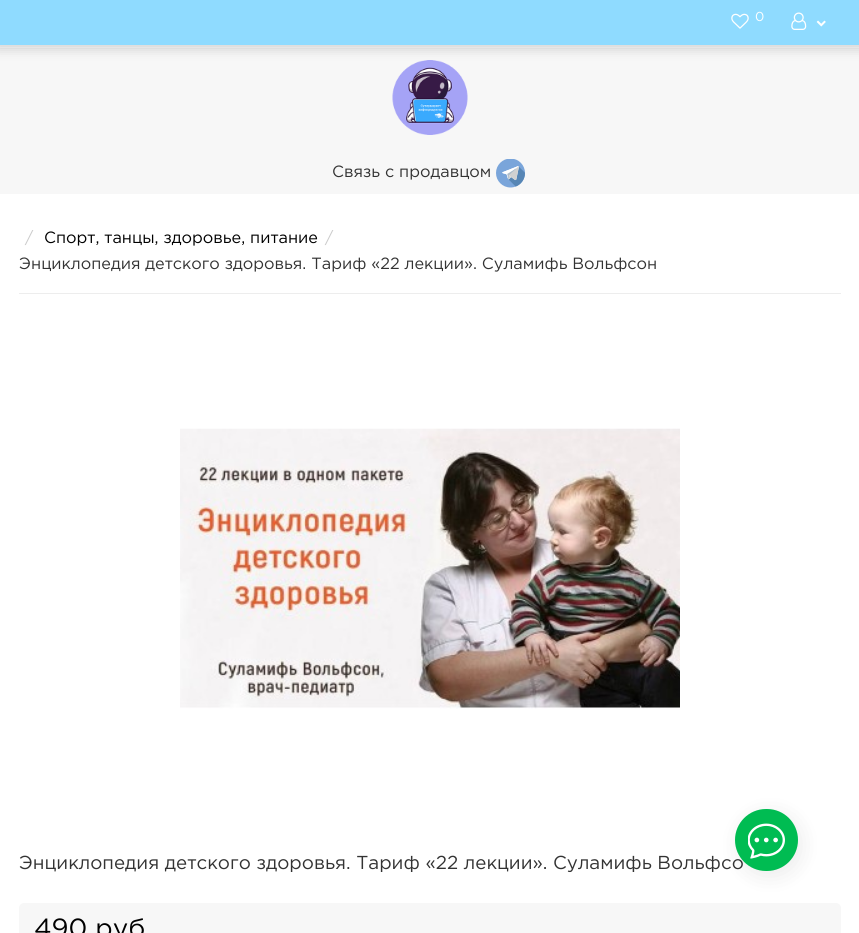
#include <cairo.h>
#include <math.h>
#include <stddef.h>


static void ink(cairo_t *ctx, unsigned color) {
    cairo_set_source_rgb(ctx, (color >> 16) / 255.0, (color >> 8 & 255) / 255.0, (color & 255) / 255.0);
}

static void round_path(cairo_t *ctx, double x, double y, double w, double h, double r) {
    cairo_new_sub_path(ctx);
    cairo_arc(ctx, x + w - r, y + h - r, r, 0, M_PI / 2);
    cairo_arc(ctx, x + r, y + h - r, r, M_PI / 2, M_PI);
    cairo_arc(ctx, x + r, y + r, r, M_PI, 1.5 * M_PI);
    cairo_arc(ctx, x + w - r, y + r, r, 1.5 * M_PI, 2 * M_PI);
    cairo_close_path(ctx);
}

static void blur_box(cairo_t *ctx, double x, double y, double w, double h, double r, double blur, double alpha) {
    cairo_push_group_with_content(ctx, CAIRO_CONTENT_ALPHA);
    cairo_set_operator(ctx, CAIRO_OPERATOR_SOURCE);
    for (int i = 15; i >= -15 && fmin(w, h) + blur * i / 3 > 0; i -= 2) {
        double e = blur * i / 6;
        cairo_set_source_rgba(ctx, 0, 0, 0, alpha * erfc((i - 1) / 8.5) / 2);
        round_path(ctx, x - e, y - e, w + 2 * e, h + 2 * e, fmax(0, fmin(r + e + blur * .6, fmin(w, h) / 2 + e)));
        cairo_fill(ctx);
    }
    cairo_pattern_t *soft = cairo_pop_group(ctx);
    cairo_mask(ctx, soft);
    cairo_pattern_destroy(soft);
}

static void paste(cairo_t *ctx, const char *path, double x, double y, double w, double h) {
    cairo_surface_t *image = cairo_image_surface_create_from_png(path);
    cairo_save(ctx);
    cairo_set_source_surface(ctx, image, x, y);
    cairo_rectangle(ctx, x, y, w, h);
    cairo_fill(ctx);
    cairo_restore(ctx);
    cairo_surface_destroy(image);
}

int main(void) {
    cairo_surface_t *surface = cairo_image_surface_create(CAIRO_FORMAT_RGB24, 859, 933);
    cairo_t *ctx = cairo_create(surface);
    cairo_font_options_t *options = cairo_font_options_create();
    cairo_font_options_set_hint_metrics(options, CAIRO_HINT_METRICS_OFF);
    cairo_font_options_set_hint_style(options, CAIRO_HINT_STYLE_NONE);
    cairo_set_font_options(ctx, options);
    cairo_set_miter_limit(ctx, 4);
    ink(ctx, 0xFFFFFF);
    cairo_paint(ctx);
    ink(ctx, 0xF7F7F7);
    cairo_rectangle(ctx, 0, 48, 859, 146);
    cairo_fill(ctx);
    paste(ctx, "media/4.png", 392, 60, 76, 75);
    ink(ctx, 0x000000);
    blur_box(ctx, -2, -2, 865, 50, 0, 6, 0.2);
    ink(ctx, 0x8FDBFF);
    cairo_rectangle(ctx, 0, 0, 859, 45);
    cairo_fill(ctx);
    paste(ctx, "media/1.png", 731, 13, 18, 16);
    cairo_select_font_face(ctx, "Gotham", CAIRO_FONT_SLANT_NORMAL, CAIRO_FONT_WEIGHT_NORMAL);
    cairo_set_font_size(ctx, 13);
    ink(ctx, 0xFFFFFF);
    cairo_move_to(ctx, 755, 21);
    cairo_show_text(ctx, "0");
    paste(ctx, "media/2.png", 791, 12, 16, 18);
    paste(ctx, "media/3.png", 816, 20, 10, 7);
    cairo_set_font_size(ctx, 16.25);
    ink(ctx, 0x333333);
    cairo_move_to(ctx, 332, 177);
    cairo_show_text(ctx, "Связь с продавцом");
    paste(ctx, "media/5.png", 496, 159, 29, 29);
    ink(ctx, 0xEDEDED);
    cairo_rectangle(ctx, 19, 293, 822, 1);
    cairo_fill(ctx);
    ink(ctx, 0xCCCCCC);
    cairo_move_to(ctx, 325, 243);
    cairo_show_text(ctx, "/");
    ink(ctx, 0x333333);
    cairo_move_to(ctx, 19, 269);
    cairo_show_text(ctx, "Энциклопедия детского здоровья. Тариф «22 лекции». Суламифь Вольфсон");
    ink(ctx, 0xCCCCCC);
    cairo_move_to(ctx, 25, 243);
    cairo_show_text(ctx, "/");
    ink(ctx, 0x000000);
    cairo_move_to(ctx, 44, 243);
    cairo_show_text(ctx, "Спорт, танцы, здоровье, питание");
    paste(ctx, "media/6.png", 180, 428, 500, 281);
    cairo_set_font_size(ctx, 18.75);
    ink(ctx, 0x333333);
    cairo_move_to(ctx, 19, 869);
    cairo_show_text(ctx, "Энциклопедия детского здоровья. Тариф «22 лекции». Суламифь Вольфсо");
    ink(ctx, 0xF7F7F7);
    round_path(ctx, 19, 903, 822, 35, 5);
    cairo_fill(ctx);
    cairo_set_font_size(ctx, 26.25);
    ink(ctx, 0x000000);
    cairo_move_to(ctx, 34, 937);
    cairo_show_text(ctx, "490 руб");
    ink(ctx, 0x000000);
    blur_box(ctx, 739, 814, 62, 62, 31, 11, 0.08);
    ink(ctx, 0x00BC52);
    round_path(ctx, 735, 809, 63, 62, 31);
    cairo_fill(ctx);
    paste(ctx, "media/7.png", 748, 823, 37, 36);
    cairo_surface_write_to_png(surface, "image.png");
    cairo_font_options_destroy(options);
    cairo_destroy(ctx);
    cairo_surface_destroy(surface);
    return 0;
}
